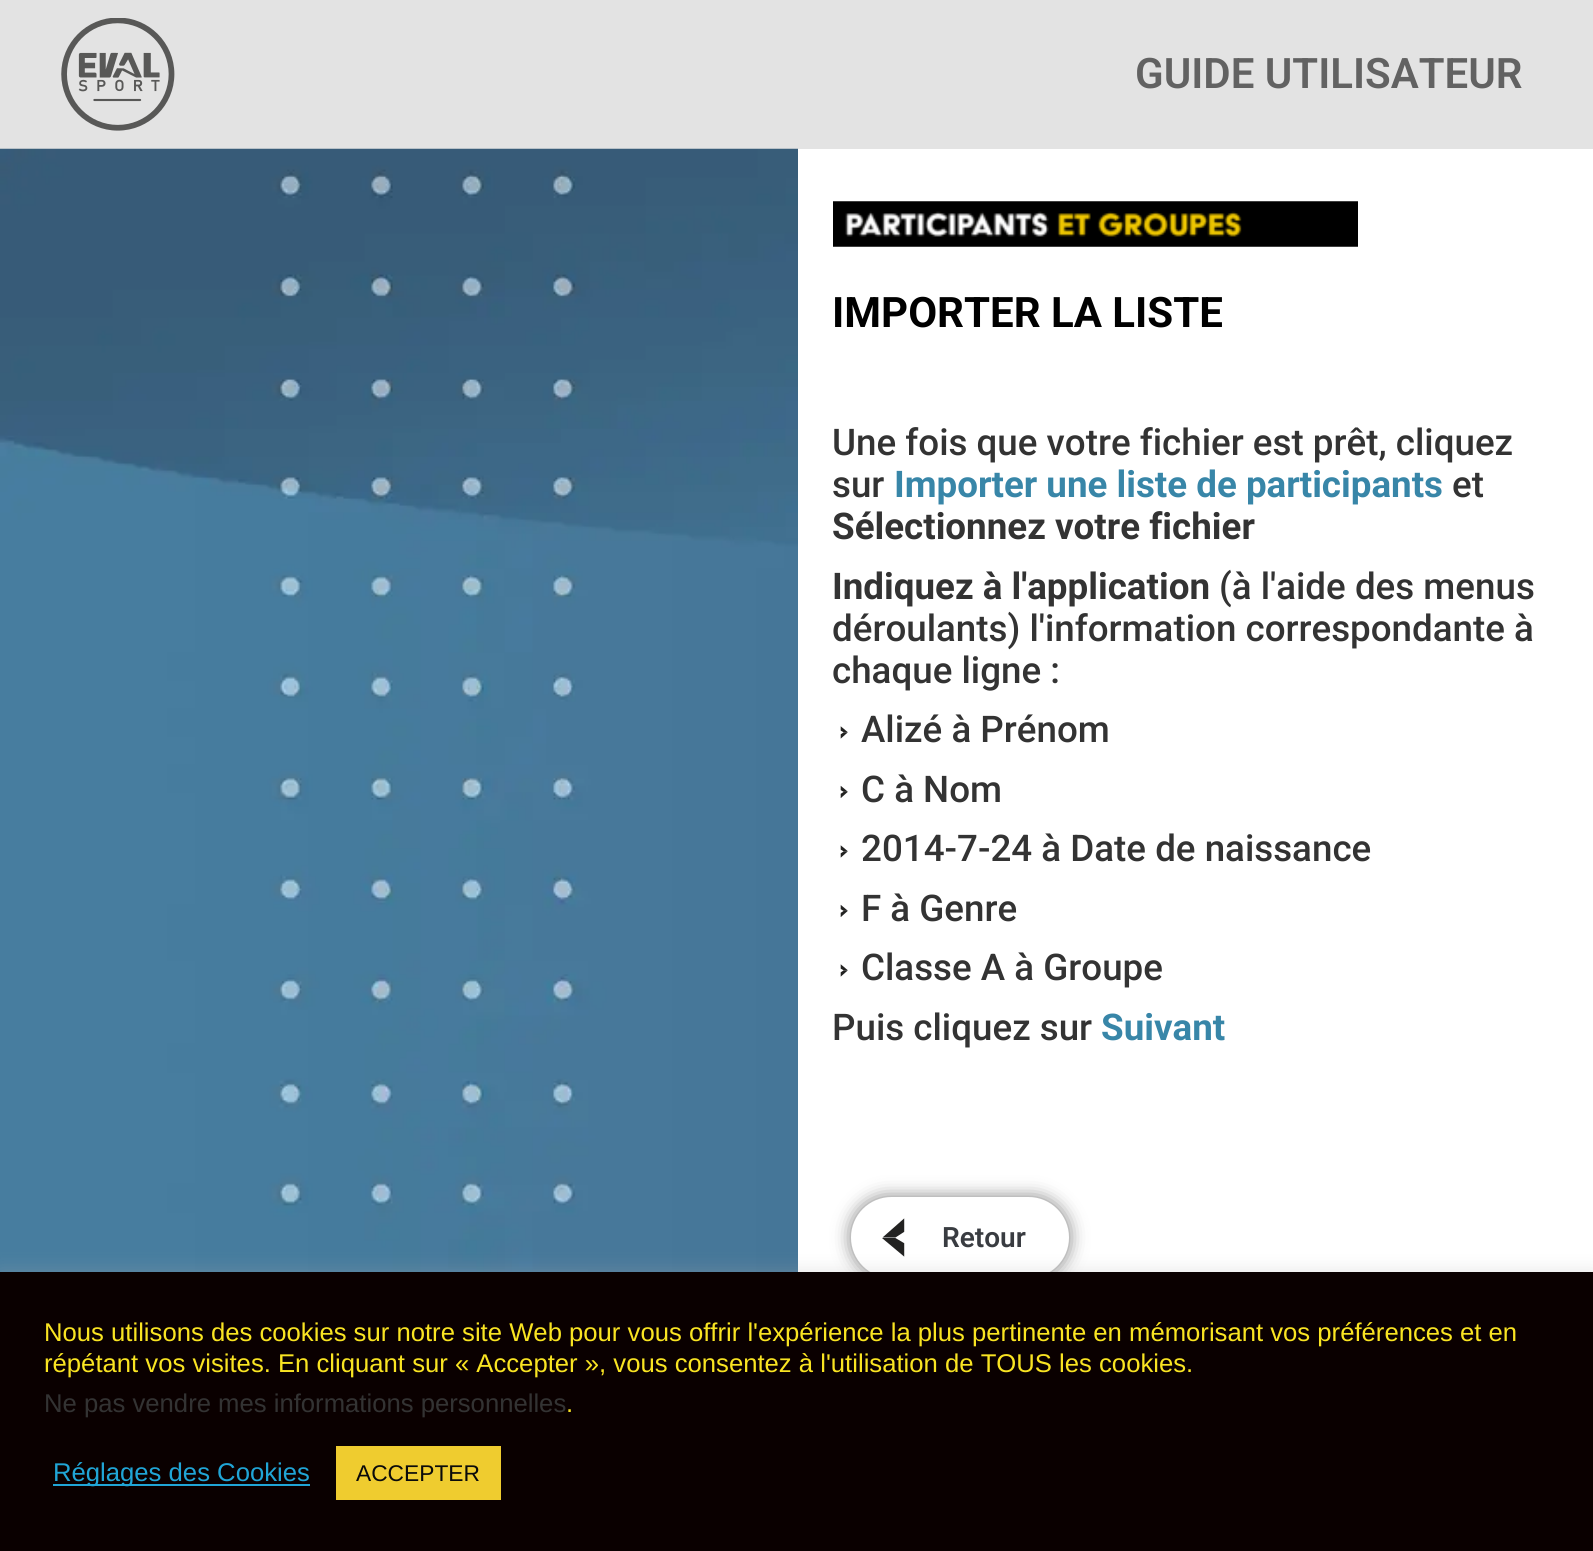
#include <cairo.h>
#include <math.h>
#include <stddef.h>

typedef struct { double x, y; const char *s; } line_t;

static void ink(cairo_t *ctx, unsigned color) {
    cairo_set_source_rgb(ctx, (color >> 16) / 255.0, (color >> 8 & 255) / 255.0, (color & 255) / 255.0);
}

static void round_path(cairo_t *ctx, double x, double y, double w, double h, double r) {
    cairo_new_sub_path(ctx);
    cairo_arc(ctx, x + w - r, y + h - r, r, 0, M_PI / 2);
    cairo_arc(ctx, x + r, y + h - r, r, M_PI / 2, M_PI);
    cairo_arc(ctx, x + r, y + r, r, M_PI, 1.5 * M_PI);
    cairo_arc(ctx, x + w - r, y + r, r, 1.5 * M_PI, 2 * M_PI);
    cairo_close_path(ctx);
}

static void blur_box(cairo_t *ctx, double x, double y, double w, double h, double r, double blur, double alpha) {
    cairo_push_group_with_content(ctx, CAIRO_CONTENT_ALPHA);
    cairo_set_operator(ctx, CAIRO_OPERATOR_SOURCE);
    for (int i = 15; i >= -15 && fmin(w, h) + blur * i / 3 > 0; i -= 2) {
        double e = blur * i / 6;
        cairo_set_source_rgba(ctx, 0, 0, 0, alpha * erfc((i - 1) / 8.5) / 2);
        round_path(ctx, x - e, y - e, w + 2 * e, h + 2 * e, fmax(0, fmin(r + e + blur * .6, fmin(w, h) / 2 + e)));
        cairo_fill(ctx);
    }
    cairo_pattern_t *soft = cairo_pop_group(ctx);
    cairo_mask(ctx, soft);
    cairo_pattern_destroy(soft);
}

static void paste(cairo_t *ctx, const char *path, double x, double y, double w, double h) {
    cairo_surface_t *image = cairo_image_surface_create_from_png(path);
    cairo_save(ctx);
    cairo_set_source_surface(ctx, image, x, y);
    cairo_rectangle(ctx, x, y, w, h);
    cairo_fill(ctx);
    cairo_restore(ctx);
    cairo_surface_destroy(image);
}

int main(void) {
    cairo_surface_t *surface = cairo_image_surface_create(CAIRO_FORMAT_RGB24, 1593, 1551);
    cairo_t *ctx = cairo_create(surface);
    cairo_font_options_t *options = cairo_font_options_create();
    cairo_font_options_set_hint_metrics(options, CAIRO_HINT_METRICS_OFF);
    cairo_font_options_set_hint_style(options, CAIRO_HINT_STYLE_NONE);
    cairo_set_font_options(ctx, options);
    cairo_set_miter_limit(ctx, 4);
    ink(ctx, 0xFFFFFF);
    cairo_paint(ctx);
    ink(ctx, 0xE3E3E3);
    cairo_rectangle(ctx, 0, 0, 1593, 149);
    cairo_fill(ctx);
    paste(ctx, "media/1.png", 61, 18, 114, 113);
    cairo_select_font_face(ctx, "Roboto SemiBold", CAIRO_FONT_SLANT_NORMAL, CAIRO_FONT_WEIGHT_NORMAL);
    cairo_set_font_size(ctx, 42);
    ink(ctx, 0x626262);
    cairo_move_to(ctx, 1135, 88);
    cairo_show_text(ctx, "GUIDE UTILISATEUR");
    paste(ctx, "media/2.png", 0, 148, 798, 1124);
    paste(ctx, "media/3.png", 833, 201, 525, 46);
    cairo_select_font_face(ctx, "Roboto", CAIRO_FONT_SLANT_NORMAL, CAIRO_FONT_WEIGHT_BOLD);
    ink(ctx, 0x000000);
    cairo_move_to(ctx, 832, 327);
    cairo_show_text(ctx, "IMPORTER LA LISTE");
    cairo_select_font_face(ctx, "Roboto Medium", CAIRO_FONT_SLANT_NORMAL, CAIRO_FONT_WEIGHT_NORMAL);
    cairo_set_font_size(ctx, 36.75);
    ink(ctx, 0x333333);
    cairo_move_to(ctx, 832, 455);
    cairo_show_text(ctx, "Une fois que votre fichier est prêt, cliquez");
    cairo_move_to(ctx, 832, 497);
    cairo_show_text(ctx, "sur");
    cairo_select_font_face(ctx, "Roboto", CAIRO_FONT_SLANT_NORMAL, CAIRO_FONT_WEIGHT_BOLD);
    ink(ctx, 0x3886A8);
    cairo_move_to(ctx, 894, 497);
    cairo_show_text(ctx, "Importer une liste de participants");
    cairo_select_font_face(ctx, "Roboto Medium", CAIRO_FONT_SLANT_NORMAL, CAIRO_FONT_WEIGHT_NORMAL);
    ink(ctx, 0x333333);
    cairo_move_to(ctx, 1452, 497);
    cairo_show_text(ctx, "et");
    cairo_select_font_face(ctx, "Roboto", CAIRO_FONT_SLANT_NORMAL, CAIRO_FONT_WEIGHT_BOLD);
    cairo_move_to(ctx, 832, 539);
    cairo_show_text(ctx, "Sélectionnez votre fichier");
    cairo_move_to(ctx, 832, 599);
    cairo_show_text(ctx, "Indiquez à l'application");
    cairo_select_font_face(ctx, "Roboto Medium", CAIRO_FONT_SLANT_NORMAL, CAIRO_FONT_WEIGHT_NORMAL);
    {
        static const line_t items[] = {
            {1219, 599, "(à l'aide des menus"},
            {832, 641, "déroulants) l'information correspondante à"},
            {832, 683, "chaque ligne :"},
        };
        for (size_t i = 0; i < sizeof items / sizeof *items; i++) {
            cairo_move_to(ctx, items[i].x, items[i].y);
            cairo_show_text(ctx, items[i].s);
        }
    }
    paste(ctx, "media/4.png", 840, 726, 8, 13);
    cairo_move_to(ctx, 861, 742);
    cairo_show_text(ctx, "Alizé à Prénom");
    paste(ctx, "media/5.png", 840, 785, 8, 13);
    cairo_move_to(ctx, 861, 802);
    cairo_show_text(ctx, "C à Nom");
    paste(ctx, "media/4.png", 840, 845, 8, 13);
    cairo_move_to(ctx, 861, 861);
    cairo_show_text(ctx, "2014-7-24 à Date de naissance");
    paste(ctx, "media/5.png", 840, 904, 8, 13);
    cairo_move_to(ctx, 861, 921);
    cairo_show_text(ctx, "F à Genre");
    paste(ctx, "media/4.png", 840, 964, 8, 13);
    cairo_move_to(ctx, 861, 980);
    cairo_show_text(ctx, "Classe A à Groupe");
    cairo_move_to(ctx, 832, 1040);
    cairo_show_text(ctx, "Puis cliquez sur");
    cairo_select_font_face(ctx, "Roboto", CAIRO_FONT_SLANT_NORMAL, CAIRO_FONT_WEIGHT_BOLD);
    ink(ctx, 0x3886A8);
    cairo_move_to(ctx, 1101, 1040);
    cairo_show_text(ctx, "Suivant");
    ink(ctx, 0x000000);
    blur_box(ctx, 851, 1197, 218, 81, 40.5, 9, 0.5);
    ink(ctx, 0xFFFFFF);
    round_path(ctx, 851, 1197, 218, 81, 40.5);
    cairo_fill(ctx);
    paste(ctx, "media/6.png", 882, 1218, 23, 39);
    cairo_select_font_face(ctx, "Roboto SemiBold", CAIRO_FONT_SLANT_NORMAL, CAIRO_FONT_WEIGHT_NORMAL);
    cairo_set_font_size(ctx, 28);
    ink(ctx, 0x393C41);
    cairo_move_to(ctx, 942, 1247);
    cairo_show_text(ctx, "Retour");
    ink(ctx, 0xACABAB);
    blur_box(ctx, 0, 1271, 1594, 280, 0, 9, 0.3);
    ink(ctx, 0x0A0000);
    cairo_rectangle(ctx, 0, 1272, 1593, 279);
    cairo_fill(ctx);
    cairo_select_font_face(ctx, "Liberation Sans", CAIRO_FONT_SLANT_NORMAL, CAIRO_FONT_WEIGHT_NORMAL);
    cairo_set_font_size(ctx, 25.67);
    ink(ctx, 0xF9E422);
    cairo_move_to(ctx, 44, 1341);
    cairo_show_text(ctx, "Nous utilisons des cookies sur notre site Web pour vous offrir l'expérience la plus pertinente en mémorisant vos préférences et en");
    cairo_move_to(ctx, 44, 1372);
    cairo_show_text(ctx, "répétant vos visites. En cliquant sur « Accepter », vous consentez à l'utilisation de TOUS les cookies.");
    ink(ctx, 0x333333);
    cairo_move_to(ctx, 44, 1412);
    cairo_show_text(ctx, "Ne pas vendre mes informations personnelles");
    ink(ctx, 0xF9E422);
    cairo_move_to(ctx, 566, 1412);
    cairo_show_text(ctx, ".");
    ink(ctx, 0x20A5D6);
    cairo_rectangle(ctx, 53, 1484, 257, 2);
    cairo_fill(ctx);
    cairo_move_to(ctx, 53, 1481);
    cairo_show_text(ctx, "Réglages des Cookies");
    ink(ctx, 0xEFCC2F);
    cairo_rectangle(ctx, 336, 1446, 165, 54);
    cairo_fill(ctx);
    cairo_set_font_size(ctx, 22.75);
    ink(ctx, 0x0A0A0A);
    cairo_move_to(ctx, 356, 1481);
    cairo_show_text(ctx, "ACCEPTER");
    cairo_surface_write_to_png(surface, "image.png");
    cairo_font_options_destroy(options);
    cairo_destroy(ctx);
    cairo_surface_destroy(surface);
    return 0;
}
